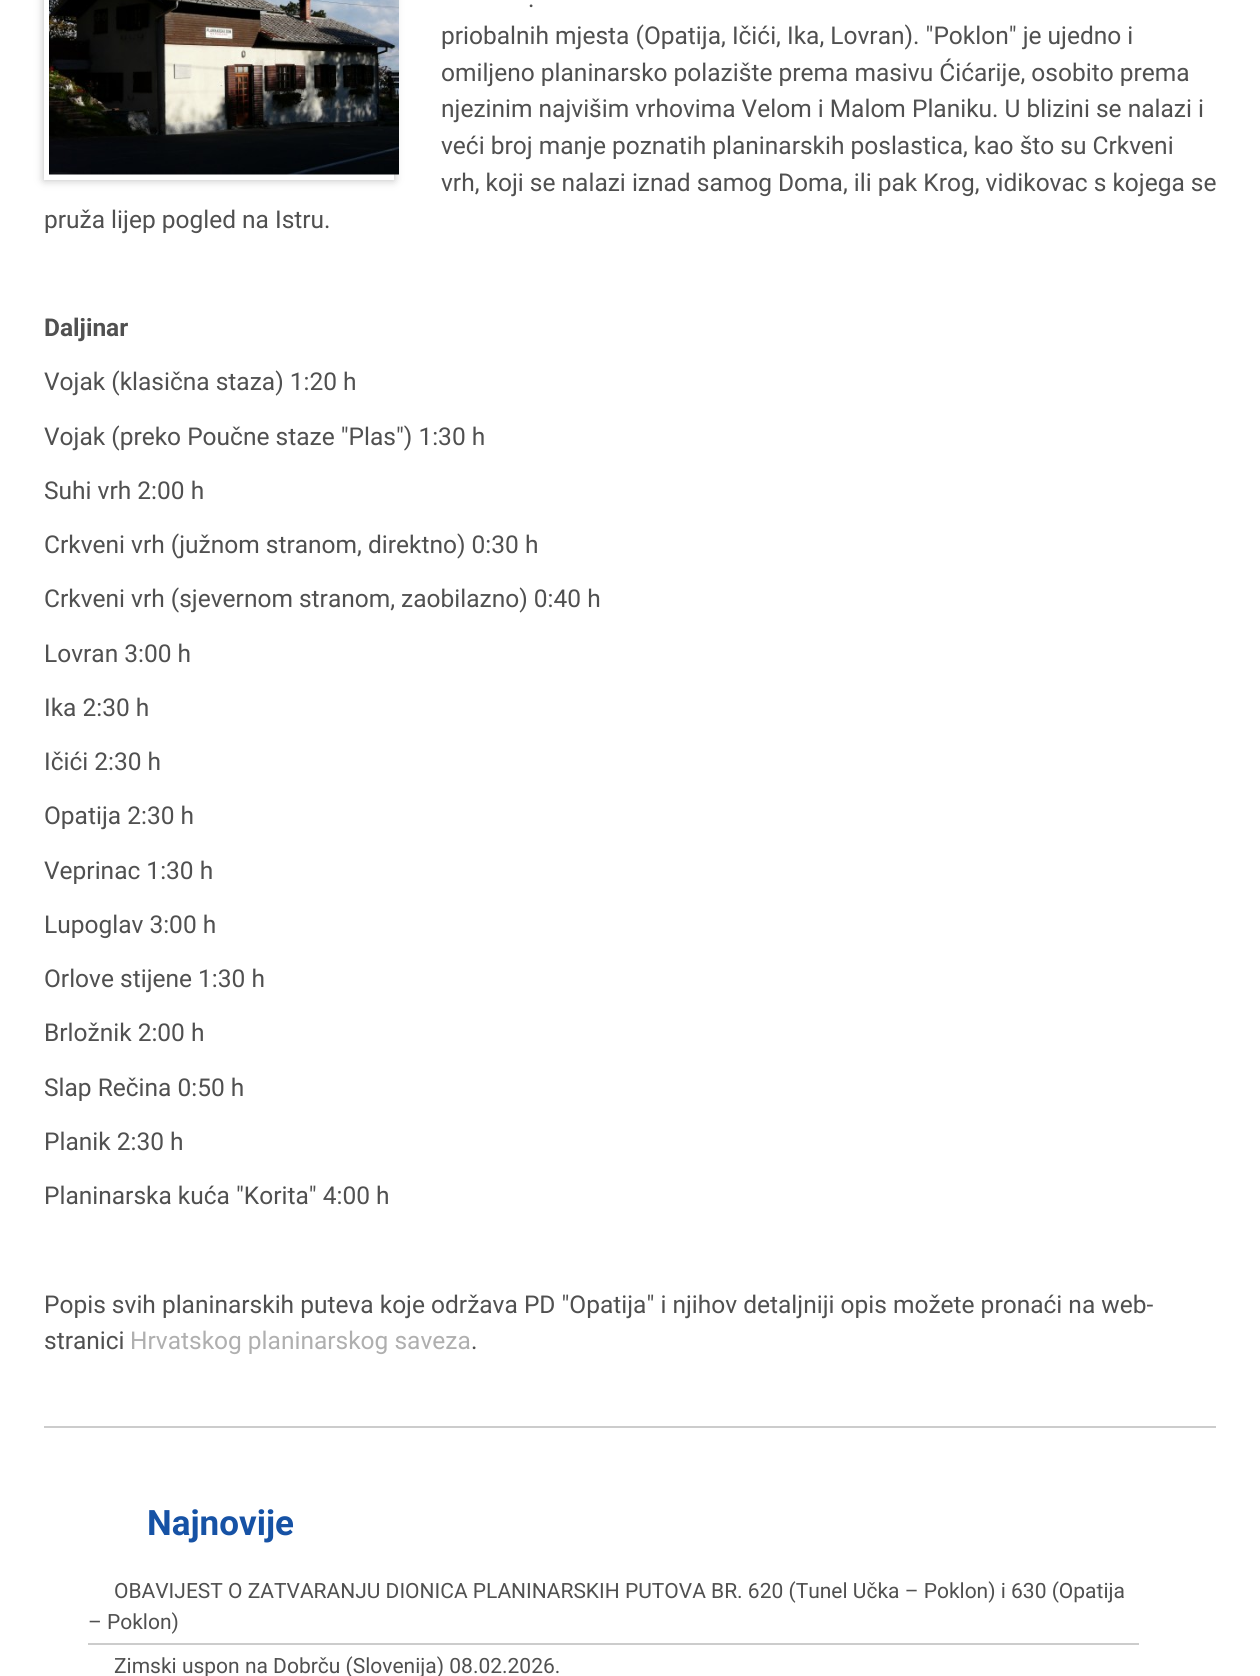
#include <cairo.h>
#include <math.h>
#include <stddef.h>

typedef struct { double x, y; const char *s; } line_t;

static void ink(cairo_t *ctx, unsigned color) {
    cairo_set_source_rgb(ctx, (color >> 16) / 255.0, (color >> 8 & 255) / 255.0, (color & 255) / 255.0);
}

static void round_path(cairo_t *ctx, double x, double y, double w, double h, double r) {
    cairo_new_sub_path(ctx);
    cairo_arc(ctx, x + w - r, y + h - r, r, 0, M_PI / 2);
    cairo_arc(ctx, x + r, y + h - r, r, M_PI / 2, M_PI);
    cairo_arc(ctx, x + r, y + r, r, M_PI, 1.5 * M_PI);
    cairo_arc(ctx, x + w - r, y + r, r, 1.5 * M_PI, 2 * M_PI);
    cairo_close_path(ctx);
}

static void blur_box(cairo_t *ctx, double x, double y, double w, double h, double r, double blur, double alpha) {
    cairo_push_group_with_content(ctx, CAIRO_CONTENT_ALPHA);
    cairo_set_operator(ctx, CAIRO_OPERATOR_SOURCE);
    for (int i = 15; i >= -15 && fmin(w, h) + blur * i / 3 > 0; i -= 2) {
        double e = blur * i / 6;
        cairo_set_source_rgba(ctx, 0, 0, 0, alpha * erfc((i - 1) / 8.5) / 2);
        round_path(ctx, x - e, y - e, w + 2 * e, h + 2 * e, fmax(0, fmin(r + e + blur * .6, fmin(w, h) / 2 + e)));
        cairo_fill(ctx);
    }
    cairo_pattern_t *soft = cairo_pop_group(ctx);
    cairo_mask(ctx, soft);
    cairo_pattern_destroy(soft);
}

static void paste(cairo_t *ctx, const char *path, double x, double y, double w, double h) {
    cairo_surface_t *image = cairo_image_surface_create_from_png(path);
    cairo_save(ctx);
    cairo_set_source_surface(ctx, image, x, y);
    cairo_rectangle(ctx, x, y, w, h);
    cairo_fill(ctx);
    cairo_restore(ctx);
    cairo_surface_destroy(image);
}

int main(void) {
    cairo_surface_t *surface = cairo_image_surface_create(CAIRO_FORMAT_RGB24, 1260, 1676);
    cairo_t *ctx = cairo_create(surface);
    cairo_font_options_t *options = cairo_font_options_create();
    cairo_font_options_set_hint_metrics(options, CAIRO_HINT_METRICS_OFF);
    cairo_font_options_set_hint_style(options, CAIRO_HINT_STYLE_NONE);
    cairo_set_font_options(ctx, options);
    cairo_set_miter_limit(ctx, 4);
    ink(ctx, 0xFFFFFF);
    cairo_paint(ctx);
    ink(ctx, 0xBABABA);
    blur_box(ctx, 44, -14, 350, 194, 0, 4.5, 1);
    ink(ctx, 0xFFFFFF);
    cairo_rectangle(ctx, 44, 0, 350, 180);
    cairo_fill(ctx);
    paste(ctx, "media/1.png", 49, 0, 350, 175);
    cairo_select_font_face(ctx, "Roboto", CAIRO_FONT_SLANT_NORMAL, CAIRO_FONT_WEIGHT_NORMAL);
    cairo_set_font_size(ctx, 24.5);
    ink(ctx, 0x505050);
    {
        static const line_t items[] = {
            {528, 7, "."},
            {441, 44, "priobalnih mjesta (Opatija, Ičići, Ika, Lovran). \"Poklon\" je ujedno i"},
            {441, 81, "omiljeno planinarsko polazište prema masivu Ćićarije, osobito prema"},
            {441, 117, "njezinim najvišim vrhovima Velom i Malom Planiku. U blizini se nalazi i"},
            {441, 154, "veći broj manje poznatih planinarskih poslastica, kao što su Crkveni"},
            {441, 191, "vrh, koji se nalazi iznad samog Doma, ili pak Krog, vidikovac s kojega se"},
            {44, 228, "pruža lijep pogled na Istru."},
        };
        for (size_t i = 0; i < sizeof items / sizeof *items; i++) {
            cairo_move_to(ctx, items[i].x, items[i].y);
            cairo_show_text(ctx, items[i].s);
        }
    }
    cairo_select_font_face(ctx, "Roboto", CAIRO_FONT_SLANT_NORMAL, CAIRO_FONT_WEIGHT_BOLD);
    cairo_move_to(ctx, 44, 336);
    cairo_show_text(ctx, "Daljinar");
    cairo_select_font_face(ctx, "Roboto", CAIRO_FONT_SLANT_NORMAL, CAIRO_FONT_WEIGHT_NORMAL);
    {
        static const line_t items[] = {
            {44, 390, "Vojak (klasična staza) 1:20 h"},
            {44, 445, "Vojak (preko Poučne staze \"Plas\") 1:30 h"},
            {44, 499, "Suhi vrh 2:00 h"},
            {44, 553, "Crkveni vrh (južnom stranom, direktno) 0:30 h"},
            {44, 607, "Crkveni vrh (sjevernom stranom, zaobilazno) 0:40 h"},
            {44, 662, "Lovran 3:00 h"},
            {44, 716, "Ika 2:30 h"},
            {44, 770, "Ičići 2:30 h"},
            {44, 824, "Opatija 2:30 h"},
            {44, 879, "Veprinac 1:30 h"},
            {44, 933, "Lupoglav 3:00 h"},
            {44, 987, "Orlove stijene 1:30 h"},
            {44, 1041, "Brložnik 2:00 h"},
            {44, 1096, "Slap Rečina 0:50 h"},
            {44, 1150, "Planik 2:30 h"},
            {44, 1204, "Planinarska kuća \"Korita\" 4:00 h"},
            {44, 1313, "Popis svih planinarskih puteva koje održava PD \"Opatija\" i njihov detaljniji opis možete pronaći na web-"},
            {44, 1349, "stranici"},
        };
        for (size_t i = 0; i < sizeof items / sizeof *items; i++) {
            cairo_move_to(ctx, items[i].x, items[i].y);
            cairo_show_text(ctx, items[i].s);
        }
    }
    ink(ctx, 0xAFAFAF);
    cairo_move_to(ctx, 130, 1349);
    cairo_show_text(ctx, "Hrvatskog planinarskog saveza");
    ink(ctx, 0x505050);
    cairo_move_to(ctx, 471, 1349);
    cairo_show_text(ctx, ".");
    ink(ctx, 0xCCCCCC);
    cairo_rectangle(ctx, 44, 1426, 1172, 2);
    cairo_fill(ctx);
    cairo_select_font_face(ctx, "Roboto", CAIRO_FONT_SLANT_NORMAL, CAIRO_FONT_WEIGHT_BOLD);
    cairo_set_font_size(ctx, 35);
    ink(ctx, 0x1652A5);
    cairo_move_to(ctx, 147, 1535);
    cairo_show_text(ctx, "Najnovije");
    ink(ctx, 0xCCCCCC);
    cairo_rectangle(ctx, 88, 1643, 1051, 2);
    cairo_fill(ctx);
    cairo_select_font_face(ctx, "Roboto", CAIRO_FONT_SLANT_NORMAL, CAIRO_FONT_WEIGHT_NORMAL);
    cairo_set_font_size(ctx, 21);
    ink(ctx, 0x505050);
    {
        static const line_t items[] = {
            {114, 1598, "OBAVIJEST O ZATVARANJU DIONICA PLANINARSKIH PUTOVA BR. 620 (Tunel Učka – Poklon) i 630 (Opatija"},
            {88, 1629, "– Poklon)"},
            {114, 1673, "Zimski uspon na Dobrču (Slovenija) 08.02.2026."},
        };
        for (size_t i = 0; i < sizeof items / sizeof *items; i++) {
            cairo_move_to(ctx, items[i].x, items[i].y);
            cairo_show_text(ctx, items[i].s);
        }
    }
    cairo_surface_write_to_png(surface, "image.png");
    cairo_font_options_destroy(options);
    cairo_destroy(ctx);
    cairo_surface_destroy(surface);
    return 0;
}
